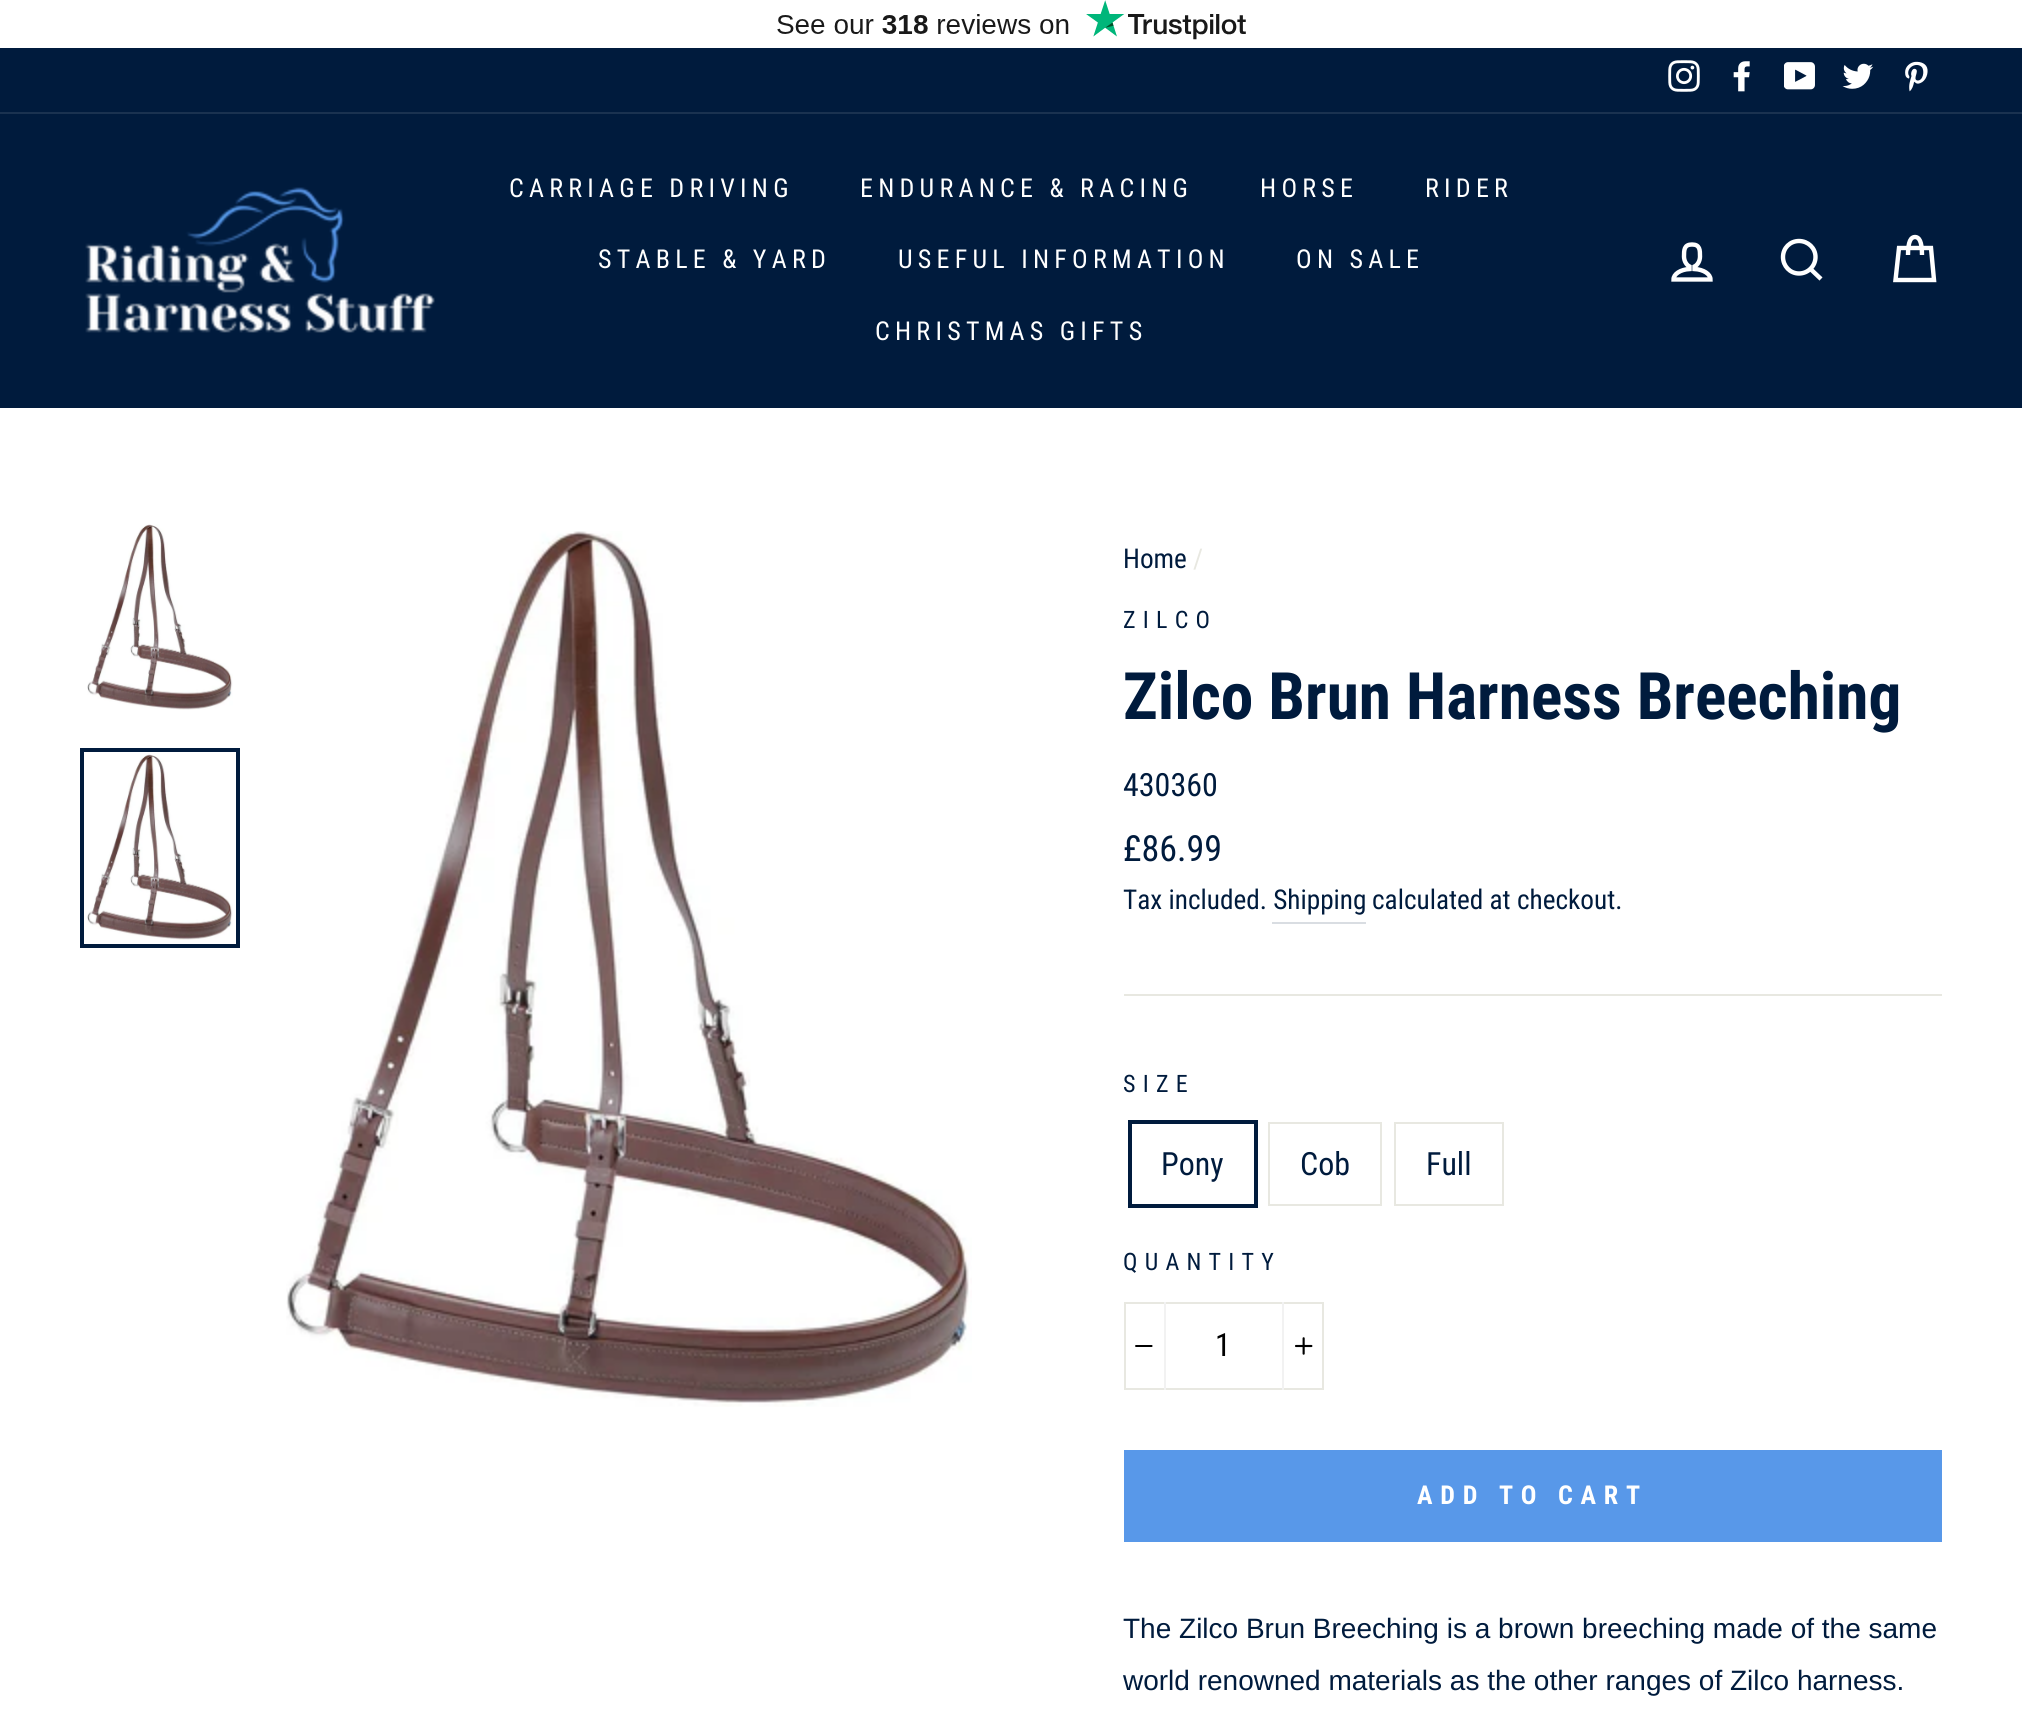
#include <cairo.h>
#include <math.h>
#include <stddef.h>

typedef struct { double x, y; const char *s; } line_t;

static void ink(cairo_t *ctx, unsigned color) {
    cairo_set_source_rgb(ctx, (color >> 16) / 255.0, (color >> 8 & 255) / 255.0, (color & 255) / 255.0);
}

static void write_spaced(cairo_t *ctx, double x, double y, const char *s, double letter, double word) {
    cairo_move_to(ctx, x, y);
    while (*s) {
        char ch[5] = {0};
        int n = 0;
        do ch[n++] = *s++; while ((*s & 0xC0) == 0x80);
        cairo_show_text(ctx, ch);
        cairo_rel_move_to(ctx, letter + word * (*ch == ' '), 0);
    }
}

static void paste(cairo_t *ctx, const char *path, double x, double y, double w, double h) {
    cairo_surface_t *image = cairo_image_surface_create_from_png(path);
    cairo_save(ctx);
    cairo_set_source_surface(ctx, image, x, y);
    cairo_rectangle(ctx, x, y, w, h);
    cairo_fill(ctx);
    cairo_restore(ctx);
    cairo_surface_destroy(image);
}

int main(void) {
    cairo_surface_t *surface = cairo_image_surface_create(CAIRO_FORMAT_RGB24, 2022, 1714);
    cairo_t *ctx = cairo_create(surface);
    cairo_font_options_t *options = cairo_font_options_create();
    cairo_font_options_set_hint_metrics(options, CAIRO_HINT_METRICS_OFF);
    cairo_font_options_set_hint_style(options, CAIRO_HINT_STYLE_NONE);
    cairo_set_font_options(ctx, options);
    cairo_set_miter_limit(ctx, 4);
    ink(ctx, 0xFFFFFF);
    cairo_paint(ctx);
    paste(ctx, "media/1.png", 777, 0, 469, 40);
    ink(ctx, 0x001B3D);
    cairo_rectangle(ctx, 0, 48, 2022, 64);
    cairo_fill(ctx);
    paste(ctx, "media/2.png", 1668, 60, 32, 32);
    paste(ctx, "media/3.png", 1733, 61, 17, 31);
    paste(ctx, "media/4.png", 1784, 62, 31, 28);
    paste(ctx, "media/5.png", 1842, 63, 32, 26);
    paste(ctx, "media/6.png", 1905, 61, 23, 31);
    cairo_rectangle(ctx, 0, 114, 2022, 294);
    cairo_fill(ctx);
    ink(ctx, 0x1A3250);
    cairo_rectangle(ctx, 0, 112, 2022, 2);
    cairo_fill(ctx);
    paste(ctx, "media/7.png", 85, 187, 350, 146);
    cairo_select_font_face(ctx, "Roboto Condensed", CAIRO_FONT_SLANT_NORMAL, CAIRO_FONT_WEIGHT_NORMAL);
    cairo_set_font_size(ctx, 26);
    ink(ctx, 0xFFFFFF);
    {
        static const line_t items[] = {
            {509, 197, "CARRIAGE DRIVING"},
            {860, 197, "ENDURANCE & RACING"},
            {1260, 197, "HORSE"},
            {1425, 197, "RIDER"},
            {598, 268, "STABLE & YARD"},
            {898, 268, "USEFUL INFORMATION"},
            {1296, 268, "ON SALE"},
            {875, 340, "CHRISTMAS GIFTS"},
        };
        for (size_t i = 0; i < sizeof items / sizeof *items; i++) {
            write_spaced(ctx, items[i].x, items[i].y, items[i].s, 5.25, 0);
        }
    }
    cairo_new_path(ctx);
    cairo_move_to(ctx, 1694.5, 269);
    cairo_line_to(ctx, 1694.5, 266.5);
    cairo_curve_to(ctx, 1697.5, 265, 1700, 261, 1700, 256.5);
    cairo_curve_to(ctx, 1700, 250, 1700, 244.5, 1692, 244.5);
    cairo_curve_to(ctx, 1684, 244.5, 1684, 250, 1684, 256.5);
    cairo_curve_to(ctx, 1684, 261, 1686.5, 265, 1689.5, 266.5);
    cairo_line_to(ctx, 1689.5, 269);
    cairo_curve_to(ctx, 1680.5, 269.5, 1673.5, 274, 1673.5, 279.5);
    cairo_line_to(ctx, 1710.5, 279.5);
    cairo_curve_to(ctx, 1710.5, 274, 1703.5, 269.5, 1694.5, 269);
    cairo_close_path(ctx);
    cairo_set_line_width(ctx, 4.4);
    cairo_stroke(ctx);
    cairo_new_path(ctx);
    cairo_move_to(ctx, 1815.5, 257);
    cairo_curve_to(ctx, 1815.5, 266, 1808, 273.5, 1799, 273.5);
    cairo_curve_to(ctx, 1790, 273.5, 1783, 266, 1783, 257);
    cairo_curve_to(ctx, 1783, 248, 1790, 241, 1799, 241);
    cairo_curve_to(ctx, 1808, 241, 1815.5, 248, 1815.5, 257);
    cairo_close_path(ctx);
    cairo_move_to(ctx, 1821, 279);
    cairo_line_to(ctx, 1810.5, 269);
    cairo_stroke(ctx);
    cairo_new_path(ctx);
    cairo_move_to(ctx, 1908, 255);
    cairo_curve_to(ctx, 1908, 241, 1911, 237, 1915, 237);
    cairo_curve_to(ctx, 1919, 237, 1922, 241, 1922, 255);
    cairo_move_to(ctx, 1899, 248);
    cairo_line_to(ctx, 1931, 248);
    cairo_line_to(ctx, 1934, 280);
    cairo_line_to(ctx, 1895.5, 280);
    cairo_close_path(ctx);
    cairo_stroke(ctx);
    paste(ctx, "media/8.png", 87, 524, 146, 186);
    cairo_rectangle(ctx, 82, 750, 156, 196);
    ink(ctx, 0x001B3D);
    cairo_set_line_width(ctx, 4);
    cairo_stroke(ctx);
    paste(ctx, "media/8.png", 87, 754, 146, 186);
    paste(ctx, "media/9.png", 286, 531, 686, 876);
    cairo_set_font_size(ctx, 27.25);
    cairo_move_to(ctx, 1123, 568);
    cairo_show_text(ctx, "Home");
    ink(ctx, 0xE8E8E1);
    cairo_move_to(ctx, 1193, 568);
    cairo_show_text(ctx, "/");
    cairo_set_font_size(ctx, 24);
    ink(ctx, 0x001B3D);
    write_spaced(ctx, 1123, 628, "ZILCO", 7.25, 0);
    cairo_select_font_face(ctx, "Roboto Condensed", CAIRO_FONT_SLANT_NORMAL, CAIRO_FONT_WEIGHT_BOLD);
    cairo_set_font_size(ctx, 65.4);
    cairo_move_to(ctx, 1123, 719);
    cairo_show_text(ctx, "Zilco Brun Harness Breeching");
    cairo_select_font_face(ctx, "Roboto Condensed", CAIRO_FONT_SLANT_NORMAL, CAIRO_FONT_WEIGHT_NORMAL);
    cairo_set_font_size(ctx, 32);
    cairo_move_to(ctx, 1123, 796);
    cairo_show_text(ctx, "430360");
    cairo_set_font_size(ctx, 36);
    cairo_move_to(ctx, 1123, 861);
    cairo_show_text(ctx, "£86.99");
    cairo_set_font_size(ctx, 27.25);
    cairo_move_to(ctx, 1123, 909);
    cairo_show_text(ctx, "Tax included. Shipping");
    cairo_move_to(ctx, 1372, 909);
    cairo_show_text(ctx, "calculated at checkout.");
    ink(ctx, 0xD9DDE2);
    cairo_rectangle(ctx, 1272, 922, 94, 2);
    cairo_fill(ctx);
    ink(ctx, 0xE8E8E1);
    cairo_rectangle(ctx, 1124, 994, 818, 2);
    cairo_fill(ctx);
    cairo_set_font_size(ctx, 24);
    ink(ctx, 0x001B3D);
    write_spaced(ctx, 1123, 1092, "SIZE", 7.25, 0);
    cairo_rectangle(ctx, 1130, 1122, 126, 84);
    cairo_stroke(ctx);
    cairo_set_font_size(ctx, 32);
    cairo_move_to(ctx, 1161, 1175);
    cairo_show_text(ctx, "Pony");
    cairo_rectangle(ctx, 1269, 1123, 112, 82);
    ink(ctx, 0xE8E8E1);
    cairo_set_line_width(ctx, 2);
    cairo_stroke(ctx);
    ink(ctx, 0x001B3D);
    cairo_move_to(ctx, 1300, 1175);
    cairo_show_text(ctx, "Cob");
    cairo_rectangle(ctx, 1395, 1123, 108, 82);
    ink(ctx, 0xE8E8E1);
    cairo_stroke(ctx);
    ink(ctx, 0x001B3D);
    cairo_move_to(ctx, 1426, 1175);
    cairo_show_text(ctx, "Full");
    cairo_set_font_size(ctx, 24);
    write_spaced(ctx, 1123, 1270, "QUANTITY", 7.25, 0);
    cairo_rectangle(ctx, 1125, 1303, 198, 86);
    ink(ctx, 0xE8E8E1);
    cairo_stroke(ctx);
    ink(ctx, 0xF2F2F2);
    cairo_rectangle(ctx, 1164, 1302, 2, 88);
    cairo_fill(ctx);
    paste(ctx, "media/10.png", 1135, 1345, 18, 2);
    cairo_set_font_size(ctx, 32);
    ink(ctx, 0x000000);
    cairo_move_to(ctx, 1215, 1356);
    cairo_show_text(ctx, "1");
    ink(ctx, 0xF2F2F2);
    cairo_rectangle(ctx, 1282, 1302, 2, 88);
    cairo_fill(ctx);
    paste(ctx, "media/11.png", 1295, 1337, 18, 18);
    ink(ctx, 0x5898E9);
    cairo_rectangle(ctx, 1124, 1450, 818, 92);
    cairo_fill(ctx);
    cairo_select_font_face(ctx, "Roboto Condensed", CAIRO_FONT_SLANT_NORMAL, CAIRO_FONT_WEIGHT_BOLD);
    cairo_set_font_size(ctx, 26);
    ink(ctx, 0xFFFFFF);
    write_spaced(ctx, 1417, 1504, "ADD TO CART", 7.75, 0);
    cairo_select_font_face(ctx, "Liberation Sans", CAIRO_FONT_SLANT_NORMAL, CAIRO_FONT_WEIGHT_NORMAL);
    cairo_set_font_size(ctx, 28);
    ink(ctx, 0x001B3D);
    cairo_move_to(ctx, 1123, 1638);
    cairo_show_text(ctx, "The Zilco Brun Breeching is a brown breeching made of the same");
    cairo_move_to(ctx, 1123, 1690);
    cairo_show_text(ctx, "world renowned materials as the other ranges of Zilco harness.");
    cairo_surface_write_to_png(surface, "image.png");
    cairo_font_options_destroy(options);
    cairo_destroy(ctx);
    cairo_surface_destroy(surface);
    return 0;
}
